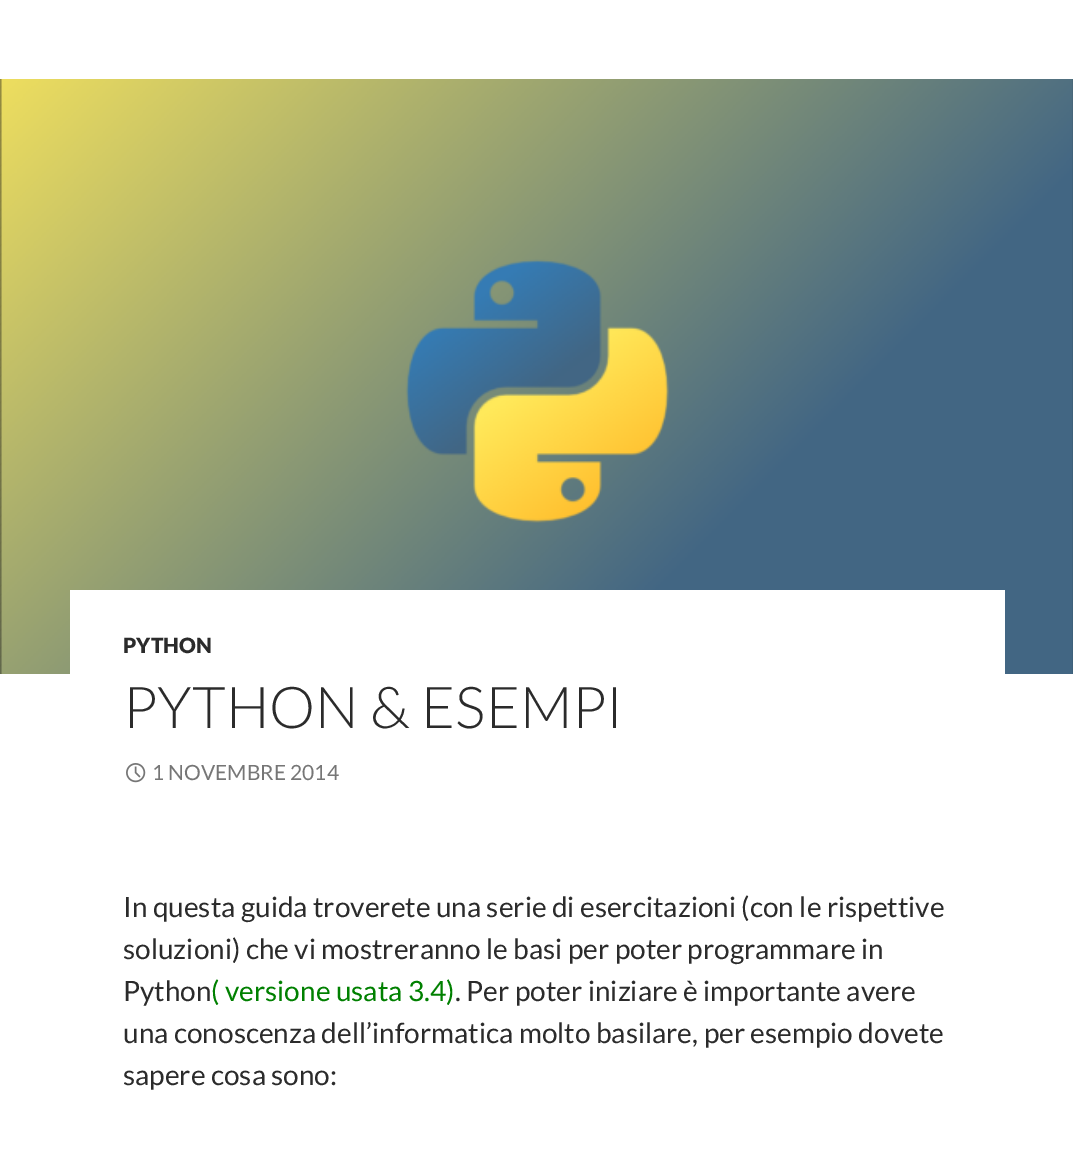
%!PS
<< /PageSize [1073 1154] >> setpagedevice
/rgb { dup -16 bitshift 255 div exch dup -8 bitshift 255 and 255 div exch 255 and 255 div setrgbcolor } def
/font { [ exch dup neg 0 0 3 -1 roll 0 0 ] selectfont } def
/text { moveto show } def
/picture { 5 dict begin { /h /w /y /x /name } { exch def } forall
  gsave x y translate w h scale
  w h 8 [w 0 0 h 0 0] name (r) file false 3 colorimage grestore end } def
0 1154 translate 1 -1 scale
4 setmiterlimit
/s1 { /Lato-Black 21 font 16#2B2B2B rgb } def
/s2 { /Lato-Light 57.75 font 16#2B2B2B rgb } def
/s3 { /Lato-Regular 21 font 16#767676 rgb } def
/s4 { /Lato-Regular 28 font 16#2B2B2B rgb } def
/s5 { /Lato-Regular 28 font 16#008000 rgb } def
16#FFFFFF rgb
0 0 1073 1154 rectfill
(pic1.raw) 0 79 1073 595 picture
(pic2.raw) 0 79 1073 595 picture
70 590 935 84 rectfill
s1
(PYTHON) 123 653 text
s2
(PYTHON & ESEMPI) 123 728 text
(pic3.raw) 126 763 20 20 picture
s3
(1 NOVEMBRE 2014) 152 780 text
s4
(In questa guida troverete una serie di esercitazioni \(con le rispettive) 123 917 text
(soluzioni\) che vi mostreranno le basi per poter programmare in) 123 959 text
(Python) 123 1001 text
s5
(\( versione usata 3.4\)) 211 1001 text
s4
(. Per poter iniziare è importante avere) 455 1001 text
(una conoscenza dell’informatica molto basilare, per esempio dovete) 123 1043 text
(sapere cosa sono:) 123 1085 text
showpage
